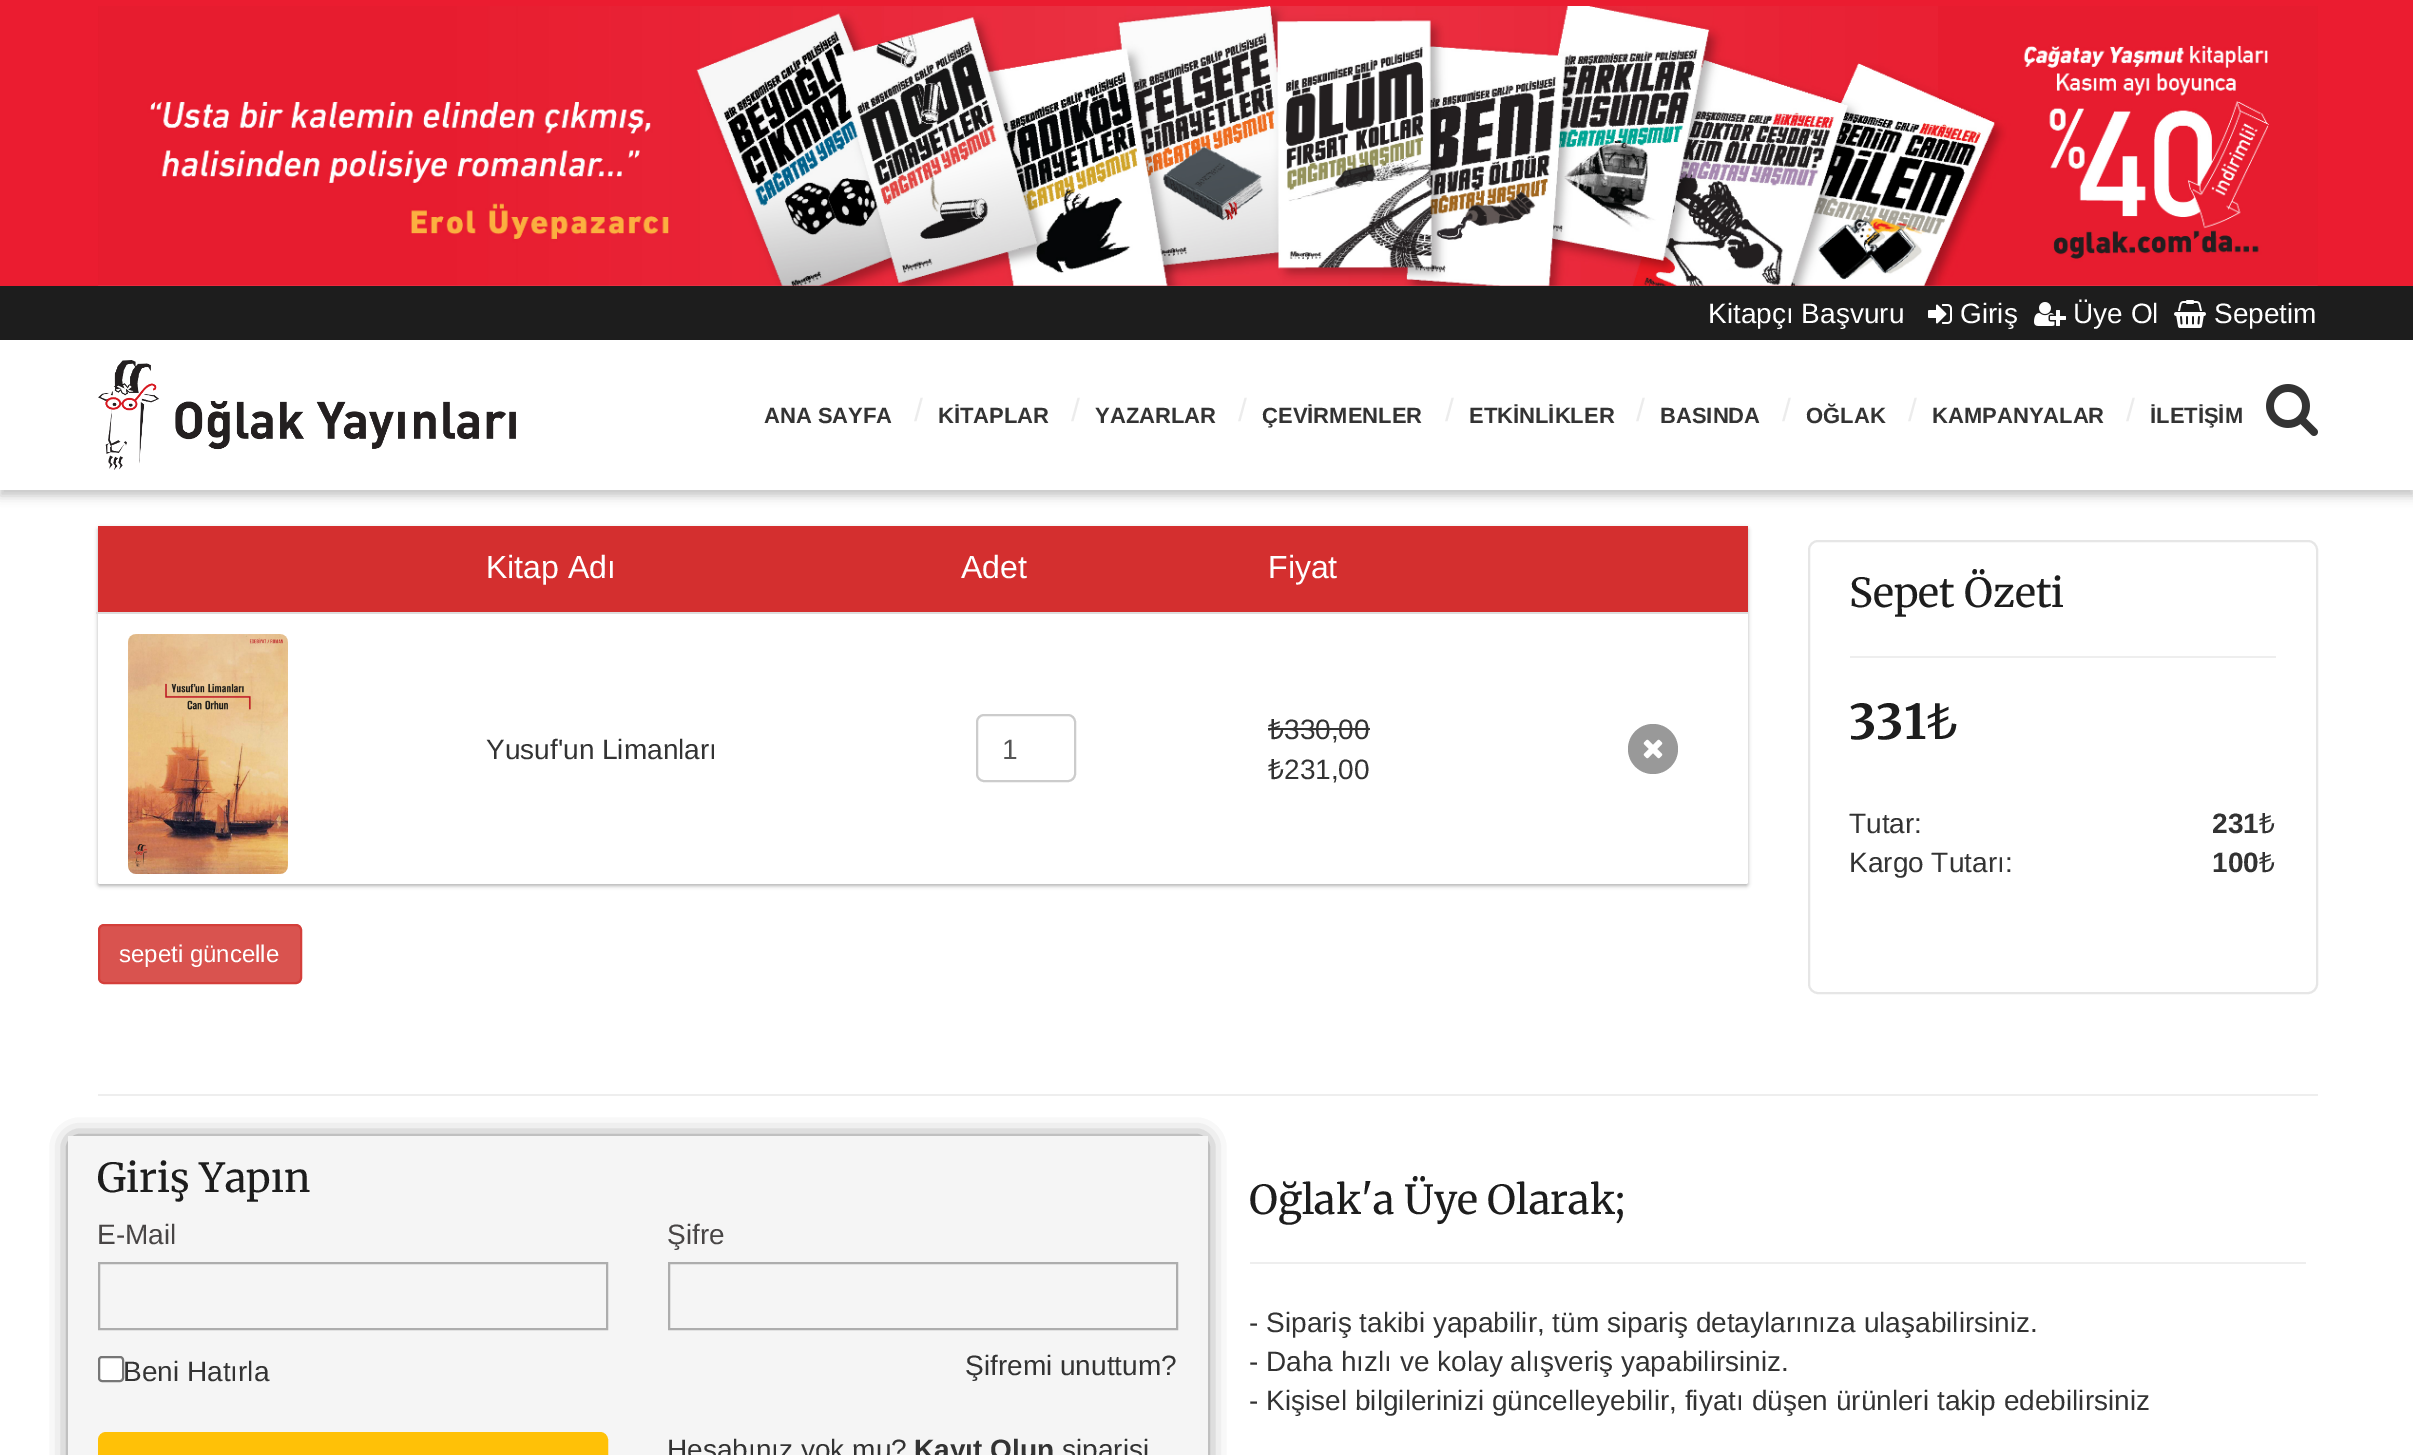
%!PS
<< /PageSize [2413 1455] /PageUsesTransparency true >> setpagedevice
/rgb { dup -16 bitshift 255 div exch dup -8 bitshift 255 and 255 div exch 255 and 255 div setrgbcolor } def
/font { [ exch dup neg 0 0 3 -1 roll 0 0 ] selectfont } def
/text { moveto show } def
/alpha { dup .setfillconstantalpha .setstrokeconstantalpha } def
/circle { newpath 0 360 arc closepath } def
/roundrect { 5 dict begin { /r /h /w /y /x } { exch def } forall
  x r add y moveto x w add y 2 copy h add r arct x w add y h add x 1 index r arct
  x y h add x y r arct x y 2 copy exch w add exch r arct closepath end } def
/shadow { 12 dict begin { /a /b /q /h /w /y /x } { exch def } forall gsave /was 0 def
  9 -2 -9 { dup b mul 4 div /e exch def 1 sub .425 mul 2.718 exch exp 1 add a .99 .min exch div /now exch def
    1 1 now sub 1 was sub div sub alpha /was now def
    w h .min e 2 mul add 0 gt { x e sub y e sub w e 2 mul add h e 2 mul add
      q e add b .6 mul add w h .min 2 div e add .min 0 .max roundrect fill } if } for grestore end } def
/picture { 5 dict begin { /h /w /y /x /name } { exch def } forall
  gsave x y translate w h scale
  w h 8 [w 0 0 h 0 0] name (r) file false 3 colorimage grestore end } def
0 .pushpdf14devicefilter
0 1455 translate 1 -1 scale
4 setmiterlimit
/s1 { /LiberationSans-Regular 28 font 16#FFFFFF rgb } def
/s2 { /LiberationSans-Bold 22 font 16#333333 rgb } def
/s3 { /LiberationSans-Regular 32 font 16#ECECEC rgb } def
/s4 { /LiberationSans-Regular 32 font 16#FFFFFF rgb } def
/s5 { /LiberationSans-Regular 28 font 16#333333 rgb } def
/s6 { /LiberationSans-Regular 28 font 16#555555 rgb } def
/s7 { /NotoSans-Regular 28 font 16#333333 rgb } def
/s8 { /LiberationSans-Regular 24 font 16#FFFFFF rgb } def
/s9 { /Merriweather-Regular 40 font 16#1D1D1D rgb } def
/s10 { /Merriweather-Bold 48 font 16#1D1D1D rgb } def
/s11 { /Merriweather-Regular 48 font 16#1D1D1D rgb } def
/s12 { /LiberationSans-Bold 28 font 16#333333 rgb } def
/s13 { /LiberationSans-Regular 28 font 16#484545 rgb } def
16#FFFFFF rgb
0 0 2413 1455 rectfill
16#EB1C30 rgb
0 0 2413 286 rectfill
(pic1.raw) 98 6 2220 280 picture
16#1D1D1D rgb
0 286 2413 54 rectfill
s1
(Kitapçı Başvuru) 1708 323 text
(pic2.raw) 1928 304 24 20 picture
(Giriş) 1960 323 text
(pic3.raw) 2034 302 32 24 picture
(Üye Ol) 2073 323 text
(pic4.raw) 2174 300 32 28 picture
(Sepetim) 2214 323 text
gsave
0 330 moveto 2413 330 lineto 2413 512 lineto 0 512 lineto closepath 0 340 moveto 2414 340 lineto 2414 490 lineto 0 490 lineto closepath eoclip newpath
16#323232 rgb
0 346 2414 150 0 5 0.28 shadow
grestore
(pic5.raw) 98 360 418 110 picture
s2
(ANA SAYFA) 764 423 text
s3
(/) 914 421 text
s2
(KİTAPLAR) 938 423 text
s3
(/) 1071 421 text
s2
(YAZARLAR) 1095 423 text
s3
(/) 1238 421 text
s2
(ÇEVİRMENLER) 1262 423 text
s3
(/) 1445 421 text
s2
(ETKİNLİKLER) 1469 423 text
s3
(/) 1636 421 text
s2
(BASINDA) 1660 423 text
s3
(/) 1782 421 text
s2
(OĞLAK) 1806 423 text
s3
(/) 1908 421 text
s2
(KAMPANYALAR) 1932 423 text
s3
(/) 2126 421 text
s2
(İLETİŞİM) 2150 423 text
(pic6.raw) 2266 384 52 52 picture
16#000000 rgb
98 528 1650 358 2 2 0.3 shadow
16#FFFFFF rgb
98 526 1650 358 2 roundrect fill
16#D42F2F rgb
98 526 1650 86 rectfill
s4
(Kitap Adı) 486 578 text
(Adet) 961 578 text
(Fiyat) 1268 578 text
16#DDDDDD rgb
96 612 1652 2 rectfill
16#999999 rgb
1653 749 25 circle fill
(pic7.raw) 1643 739 20 20 picture
(pic8.raw) 128 634 160 240 picture
s5
(Yusuf'un Limanları) 486 759 text
16#CCCCCC rgb
2 setlinewidth
977 715 98 66 7 roundrect stroke
s6
(1) 1002 759 text
s7
(₺) 1268 739 text
1268 728 102 2 rectfill
s5
(330,00) 1284 739 text
s7
(₺) 1268 779 text
s5
(231,00) 1284 779 text
16#D9534F rgb
99 925 202 58 5 roundrect gsave fill grestore
16#D43F3A rgb
stroke
s8
(sepeti güncelle) 119 962 text
16#E6E6E6 rgb
1809 541 508 452 9 roundrect stroke
s9
(Sepet Özeti) 1849 607 text
16#EEEEEE rgb
1850 656 426 2 rectfill
s10
(331) 1849 739 text
s11
(₺) 1926 739 text
s5
(Tutar:) 1849 833 text
s12
(231) 2212 833 text
s7
(₺) 2259 833 text
s5
(Kargo Tutarı:) 1849 872 text
s12
(100) 2212 872 text
s7
(₺) 2259 872 text
16#EEEEEE rgb
98 1094 2220 2 rectfill
16#000000 rgb
74 1142 1128 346 0 11 0.82 shadow
16#F5F5F5 rgb
68 1136 1140 319 rectfill
s9
(Giriş Yapın) 97 1192 text
s13
(E-Mail) 97 1244 text
16#ADADAD rgb
99 1263 508 66 rectstroke
16#FFFFFF rgb
99 1357 24 24 3 roundrect gsave fill grestore
16#767676 rgb
stroke
s5
(Beni Hatırla) 123 1381 text
s13
(Şifre) 667 1244 text
16#ADADAD rgb
669 1263 508 66 rectstroke
s5
(Şifremi unuttum?) 965 1375 text
16#FFC107 rgb
99 1433 508 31 7 roundrect gsave fill grestore
stroke
s5
(Hesabınız yok mu?) 667 1459 text
s12
(Kayıt Olun) 914 1459 text
s5
(siparişi) 1062 1459 text
s9
(Oğlak'a Üye Olarak;) 1249 1214 text
16#EEEEEE rgb
1250 1262 1056 2 rectfill
s5
(- Sipariş takibi yapabilir, tüm sipariş detaylarınıza ulaşabilirsiniz.) 1249 1332 text
(- Daha hızlı ve kolay alışveriş yapabilirsiniz.) 1249 1371 text
(- Kişisel bilgilerinizi güncelleyebilir, fiyatı düşen ürünleri takip edebilirsiniz) 1249 1410 text
.poppdf14devicefilter showpage
